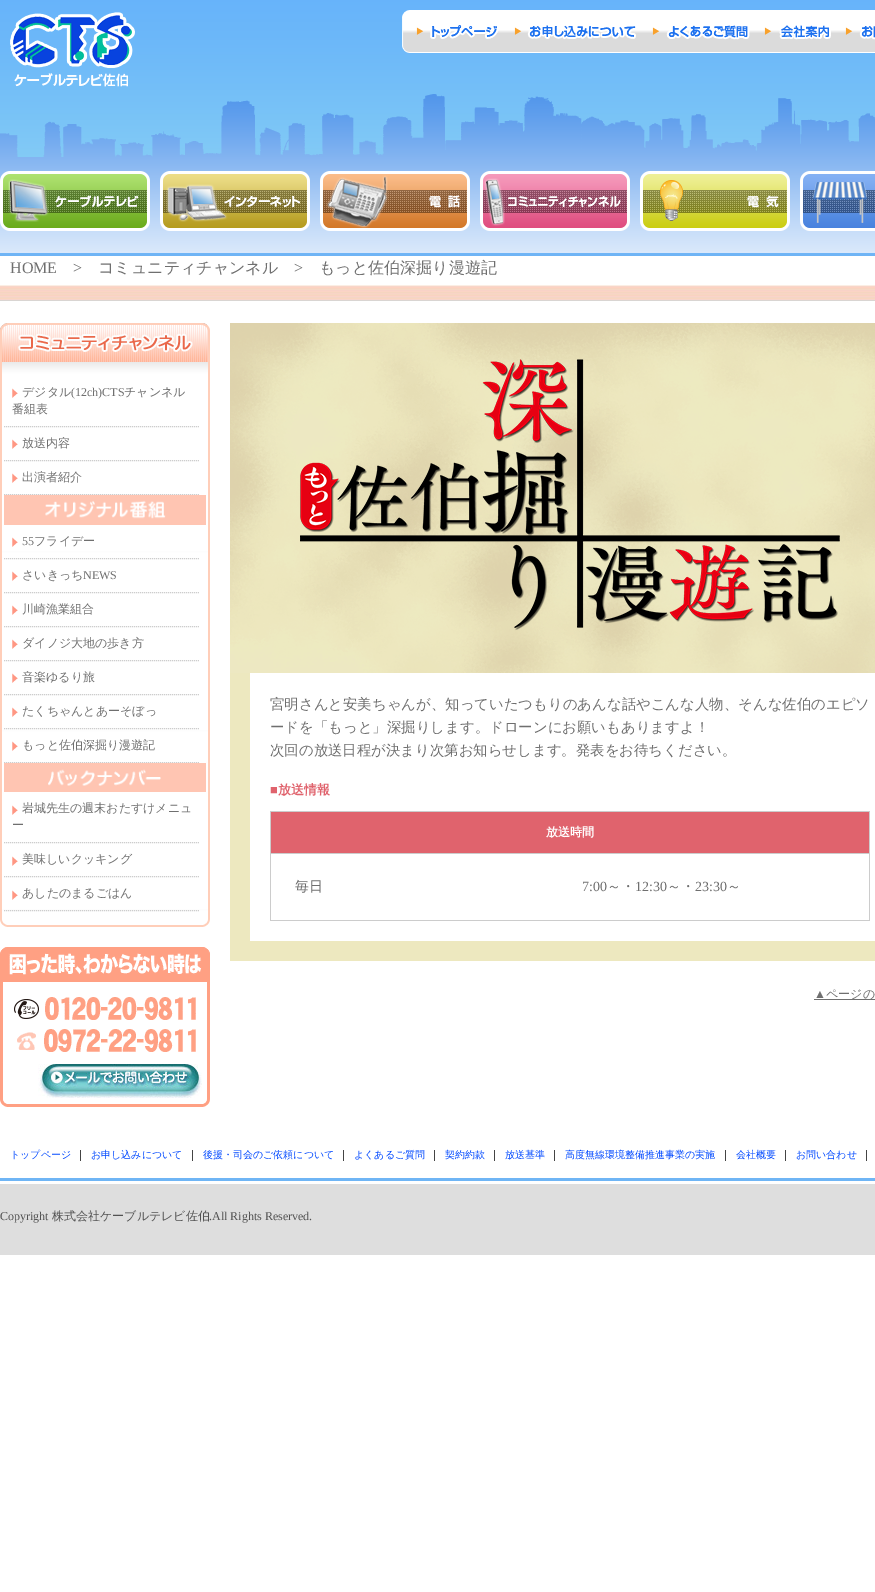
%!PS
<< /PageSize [875 1592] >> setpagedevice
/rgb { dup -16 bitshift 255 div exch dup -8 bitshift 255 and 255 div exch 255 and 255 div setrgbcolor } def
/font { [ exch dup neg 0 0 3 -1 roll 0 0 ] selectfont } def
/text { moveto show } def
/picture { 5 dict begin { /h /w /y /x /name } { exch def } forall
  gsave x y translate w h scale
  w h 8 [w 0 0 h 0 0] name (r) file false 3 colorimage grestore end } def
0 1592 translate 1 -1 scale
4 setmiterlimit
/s1 { /LiberationSerif-Regular 16 font 16#6F6F6F rgb } def
/s2 { /WenQuanYiZenHei-Medium 16 font 16#6F6F6F rgb } def
/s3 { /WenQuanYiZenHei-Medium 12 font 16#6F6F6F rgb } def
/s4 { /LiberationSerif-Regular 12 font 16#6F6F6F rgb } def
/s5 { /WenQuanYiZenHei-Medium 14.4 font 16#6F6F6F rgb } def
/s6 { /LiberationSerif-Bold 13 font 16#E0636D rgb } def
/s7 { /WenQuanYiZenHei-Bold 13 font 16#E0636D rgb } def
/s8 { /WenQuanYiZenHei-Bold 12 font 16#FFFFFF rgb } def
/s9 { /WenQuanYiZenHei-Medium 14 font 16#6F6F6F rgb } def
/s10 { /LiberationSerif-Regular 14 font 16#6F6F6F rgb } def
/s11 { /WenQuanYiZenHei-Medium 10 font 16#0048FF rgb } def
/s12 { /LiberationSerif-Regular 12 font 16#525252 rgb } def
/s13 { /WenQuanYiZenHei-Medium 12 font 16#525252 rgb } def
16#FFFFFF rgb
0 0 875 1592 rectfill
(pic1.raw) 0 0 875 157 picture
(pic2.raw) 10 12 125 75 picture
(pic3.raw) 402 10 105 43 picture
(pic4.raw) 507 10 139 43 picture
(pic5.raw) 646 10 112 43 picture
(pic6.raw) 758 10 82 43 picture
(pic7.raw) 840 10 35 43 picture
(pic8.raw) 0 94 875 159 picture
(pic9.raw) 0 171 150 60 picture
(pic10.raw) 160 171 150 60 picture
(pic11.raw) 320 171 150 60 picture
(pic12.raw) 480 171 150 60 picture
(pic13.raw) 640 171 150 60 picture
(pic14.raw) 800 171 75 60 picture
(pic15.raw) 0 253 875 167 picture
s1
(HOME) 10 273 text
(>) 73 273 text
s2
(コミュニティチャンネル) 98 273 text
s1
(>) 294 273 text
s2
(もっと佐伯深掘り漫遊記) 319 273 text
(pic16.raw) 0 323 210 49 picture
(pic17.raw) 0 372 210 543 picture
16#CDCDCD rgb
[1 1] 0 setdash
4 426.5 moveto 200 426.5 lineto stroke
(pic18.raw) 12 388 6 10 picture
s3
(デジタル) 22 396 text
s4
(\(12ch\)CTS) 71 396 text
s3
(チャンネル) 124 396 text
(番組表) 12 413 text
16#CDCDCD rgb
4 460.5 moveto 200 460.5 lineto stroke
(pic18.raw) 12 439 6 10 picture
s3
(放送内容) 22 447 text
16#CDCDCD rgb
4 494.5 moveto 200 494.5 lineto stroke
(pic18.raw) 12 473 6 10 picture
s3
(出演者紹介) 22 481 text
(pic19.raw) 4 495 202 30 picture
16#CDCDCD rgb
4 558.5 moveto 200 558.5 lineto stroke
(pic18.raw) 12 537 6 10 picture
s4
(55) 22 545 text
s3
(フライデー) 34 545 text
16#CDCDCD rgb
4 592.5 moveto 200 592.5 lineto stroke
(pic18.raw) 12 571 6 10 picture
s3
(さいきっち) 22 579 text
s4
(NEWS) 83 579 text
16#CDCDCD rgb
4 626.5 moveto 200 626.5 lineto stroke
(pic18.raw) 12 605 6 10 picture
s3
(川崎漁業組合) 22 613 text
16#CDCDCD rgb
4 660.5 moveto 200 660.5 lineto stroke
(pic18.raw) 12 639 6 10 picture
s3
(ダイノジ大地の歩き方) 22 647 text
16#CDCDCD rgb
4 694.5 moveto 200 694.5 lineto stroke
(pic18.raw) 12 673 6 10 picture
s3
(音楽ゆるり旅) 22 681 text
16#CDCDCD rgb
4 728.5 moveto 200 728.5 lineto stroke
(pic18.raw) 12 707 6 10 picture
s3
(たくちゃんとあーそぼっ) 22 715 text
16#CDCDCD rgb
4 762.5 moveto 200 762.5 lineto stroke
(pic18.raw) 12 741 6 10 picture
s3
(もっと佐伯深掘り漫遊記) 22 749 text
(pic20.raw) 4 763 202 29 picture
16#CDCDCD rgb
4 842.5 moveto 200 842.5 lineto stroke
(pic18.raw) 12 805 6 10 picture
s3
(岩城先生の週末おたすけメニュ) 22 812 text
(ー) 12 829 text
16#CDCDCD rgb
4 876.5 moveto 200 876.5 lineto stroke
(pic18.raw) 12 856 6 10 picture
s3
(美味しいクッキング) 22 863 text
16#CDCDCD rgb
4 910.5 moveto 200 910.5 lineto stroke
(pic18.raw) 12 890 6 10 picture
s3
(あしたのまるごはん) 22 897 text
(pic21.raw) 0 915 210 12 picture
(pic22.raw) 0 947 210 117 picture
(pic23.raw) 0 1064 210 34 picture
(pic24.raw) 38 1064 164 34 picture
(pic25.raw) 0 1098 210 9 picture
(pic26.raw) 230 323 645 350 picture
16#EDE8BF rgb
230 673 20 268 rectfill
s5
(宮明さんと安美ちゃんが、知っていたつもりのあんな話やこんな人物、そんな佐伯のエピソ) 270 709 text
(ードを「もっと」深掘りします。ドローンにお願いもありますよ！) 270 732 text
(次回の放送日程が決まり次第お知らせします。発表をお待ちください。) 270 755 text
s6
(■) 270 794 text
s7
(放送情報) 278 794 text
16#CCCCCC rgb
270 811 600 1 rectfill
869 811 1 110 rectfill
16#E0636D rgb
271 812 598 41 rectfill
16#CCCCCC rgb
270 920 600 1 rectfill
270 853 1 68 rectfill
270 853 600 1 rectfill
270 811 1 43 rectfill
s8
(放送時間) 546 836 text
s9
(毎日) 295 891 text
s10
(7:00) 582 891 text
s9
(～・) 607 891 text
s10
(12:30) 635 891 text
s9
(～・) 667 891 text
s10
(23:30) 695 891 text
s9
(～) 727 891 text
16#EDE8BF rgb
230 941 645 20 rectfill
s4
(▲) 814 998 text
814 999 61 1 rectfill
s3
(ページの) 826 998 text
16#444444 rgb
80 1150 1 11 rectfill
s11
(トップページ) 10 1158 text
16#444444 rgb
192 1150 1 11 rectfill
s11
(お申し込みについて) 91 1158 text
16#444444 rgb
343 1150 1 11 rectfill
s11
(後援・司会のご依頼について) 203 1158 text
16#444444 rgb
434 1150 1 11 rectfill
s11
(よくあるご質問) 354 1158 text
16#444444 rgb
494 1150 1 11 rectfill
s11
(契約約款) 445 1158 text
16#444444 rgb
554 1150 1 11 rectfill
s11
(放送基準) 505 1158 text
16#444444 rgb
725 1150 1 11 rectfill
s11
(高度無線環境整備推進事業の実施) 565 1158 text
16#444444 rgb
785 1150 1 11 rectfill
s11
(会社概要) 736 1158 text
16#444444 rgb
866 1150 1 11 rectfill
s11
(お問い合わせ) 796 1158 text
16#DEDEDE rgb
0 1184 875 71 rectfill
(pic27.raw) 0 1178 875 6 picture
s12
(Copyright) 0 1220 text
s13
(株式会社ケーブルテレビ佐伯) 52 1220 text
s12
(.All Rights Reserved.) 209 1220 text
showpage
